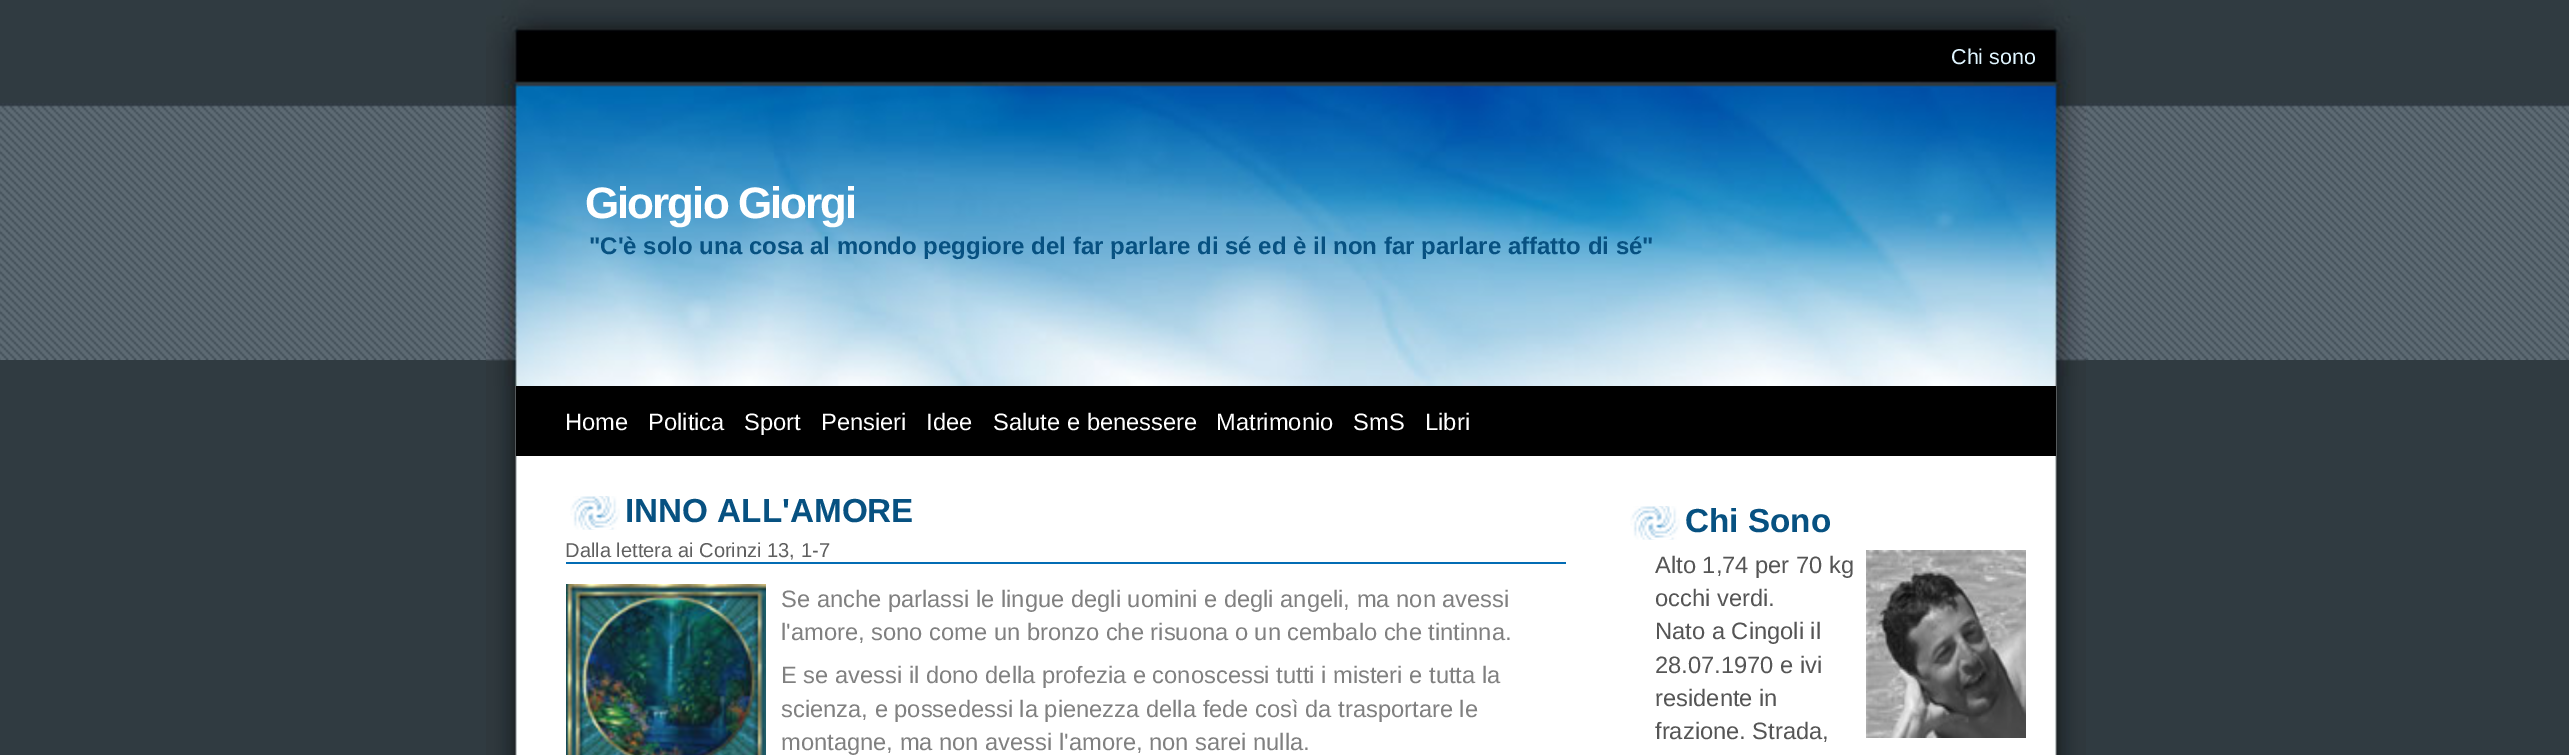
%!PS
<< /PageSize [2569 755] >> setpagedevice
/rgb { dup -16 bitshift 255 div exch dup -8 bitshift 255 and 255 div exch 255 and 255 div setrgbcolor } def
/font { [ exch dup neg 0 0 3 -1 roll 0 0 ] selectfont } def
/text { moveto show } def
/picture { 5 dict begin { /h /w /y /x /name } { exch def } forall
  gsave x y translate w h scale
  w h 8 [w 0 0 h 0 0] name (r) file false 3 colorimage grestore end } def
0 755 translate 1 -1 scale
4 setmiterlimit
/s1 { /LiberationSans-Regular 21.5 font 16#E0F5FF rgb } def
/s2 { /LiberationSans-Bold 24 font 16#075181 rgb } def
/s3 { /LiberationSans-Regular 23.7 font 16#FFFFFF rgb } def
/s4 { /LiberationSans-Bold 33.25 font 16#075181 rgb } def
/s5 { /LiberationSans-Regular 20.1 font 16#5F5F5F rgb } def
/s6 { /LiberationSans-Regular 23.7 font 16#808080 rgb } def
/s7 { /LiberationSans-Regular 23.7 font 16#555555 rgb } def
16#303B41 rgb
0 0 2569 755 rectfill
(pic1.raw) 0 103 2569 257 picture
(pic2.raw) 486 386 1600 369 picture
(pic3.raw) 486 0 1600 88 picture
s1
(Chi sono) 1951 64 text
(pic4.raw) 486 88 1600 298 picture
/LiberationSans-Bold 44 font
16#FFFFFF rgb
585 218 moveto -2 0 (Giorgio Giorgi) ashow
s2
("C'è solo una cosa al mondo peggiore del far parlare di sé ed è il non far parlare affatto di sé") 589 254 text
16#000000 rgb
516 386 1540 70 rectfill
s3
(Home) 565 430 text
(Politica) 648 430 text
(Sport) 744 430 text
(Pensieri) 821 430 text
(Idee) 926 430 text
(Salute e benessere) 993 430 text
(Matrimonio) 1216 430 text
(SmS) 1353 430 text
(Libri) 1425 430 text
(pic5.raw) 570 496 50 34 picture
s4
(INNO ALL'AMORE) 625 522 text
16#036CB4 rgb
566 562 1000 2 rectfill
s5
(Dalla lettera ai Corinzi 13, 1-7) 565 557 text
(pic6.raw) 566 584 200 171 picture
s6
(Se anche parlassi le lingue degli uomini e degli angeli, ma non avessi) 781 607 text
(l'amore, sono come un bronzo che risuona o un cembalo che tintinna.) 781 640 text
(E se avessi il dono della profezia e conoscessi tutti i misteri e tutta la) 781 683 text
(scienza, e possedessi la pienezza della fede così da trasportare le) 781 717 text
(montagne, ma non avessi l'amore, non sarei nulla.) 781 750 text
(pic7.raw) 1630 506 50 34 picture
s4
(Chi Sono) 1685 532 text
s7
(Alto 1,74 per 70 kg) 1655 573 text
(pic8.raw) 1866 550 160 188 picture
(occhi verdi.) 1655 606 text
(Nato a Cingoli il) 1655 639 text
(28.07.1970 e ivi) 1655 673 text
(residente in) 1655 706 text
(frazione. Strada,) 1655 739 text
showpage
